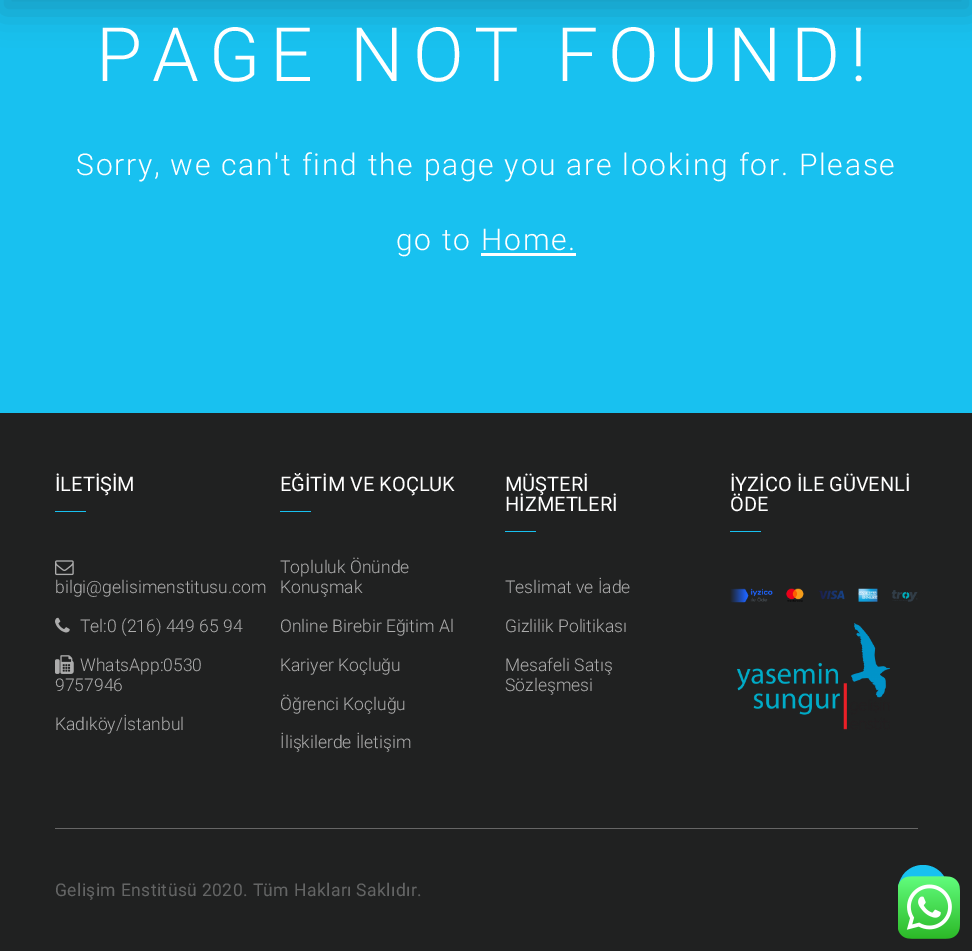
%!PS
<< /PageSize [972 951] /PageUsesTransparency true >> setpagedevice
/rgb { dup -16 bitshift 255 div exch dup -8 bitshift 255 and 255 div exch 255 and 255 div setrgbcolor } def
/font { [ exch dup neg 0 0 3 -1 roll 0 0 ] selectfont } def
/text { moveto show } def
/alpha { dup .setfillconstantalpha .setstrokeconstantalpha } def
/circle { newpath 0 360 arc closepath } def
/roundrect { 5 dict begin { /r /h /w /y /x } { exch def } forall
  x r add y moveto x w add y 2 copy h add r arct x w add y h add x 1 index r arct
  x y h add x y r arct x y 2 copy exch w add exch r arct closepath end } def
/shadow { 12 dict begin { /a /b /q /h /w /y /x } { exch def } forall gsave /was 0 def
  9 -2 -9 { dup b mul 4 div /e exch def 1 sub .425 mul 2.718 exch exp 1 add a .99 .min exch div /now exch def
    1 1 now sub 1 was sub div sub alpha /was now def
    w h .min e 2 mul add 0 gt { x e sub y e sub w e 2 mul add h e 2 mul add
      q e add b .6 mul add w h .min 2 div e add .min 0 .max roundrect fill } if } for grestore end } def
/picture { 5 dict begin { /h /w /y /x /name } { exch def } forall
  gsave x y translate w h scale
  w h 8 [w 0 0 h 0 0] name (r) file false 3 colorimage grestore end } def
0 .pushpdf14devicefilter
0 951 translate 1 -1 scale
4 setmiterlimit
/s1 { /Roboto-Regular 20 font 16#FFFFFF rgb } def
/s2 { /Roboto-Light 17.5 font 16#ACACAC rgb } def
16#18C1F0 rgb
0 0 972 951 rectfill
16#181718 rgb
0 -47 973 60 0 15.5 0.2 shadow
/Roboto-Light 75 font
16#FFFFFF rgb
96 81 moveto 9.75 0 (PAGE NOT FOUND!) ashow
/Roboto-Light 30 font
76 175 moveto 1.75 0 (Sorry, we can't find the page you are looking for. Please) ashow
396 250 moveto 1.75 0 (go to Home.) ashow
481 253 95 3 rectfill
16#202121 rgb
0 413 972 538 rectfill
s1
(İLETİŞİM) 55 491 text
16#18C1F0 rgb
55 511 31 1 rectfill
(pic1.raw) 55 560 19 16 picture
s2
(bilgi@gelisimenstitusu.com) 55 593 text
(pic2.raw) 55 617 15 16 picture
(Tel:0 \(216\) 449 65 94) 80 632 text
(pic3.raw) 55 655 19 19 picture
(WhatsApp:0530) 80 671 text
(9757946) 55 691 text
(Kadıköy/İstanbul) 55 730 text
s1
(EĞİTİM VE KOÇLUK) 280 491 text
16#18C1F0 rgb
280 511 31 1 rectfill
s2
(Topluluk Önünde) 280 573 text
(Konuşmak) 280 593 text
(Online Birebir Eğitim Al) 280 632 text
(Kariyer Koçluğu) 280 671 text
(Öğrenci Koçluğu) 280 710 text
(İlişkilerde İletişim) 280 748 text
s1
(MÜŞTERİ) 505 491 text
(HİZMETLERİ) 505 511 text
16#18C1F0 rgb
505 531 31 1 rectfill
s2
(Teslimat ve İade) 505 593 text
(Gizlilik Politikası) 505 632 text
(Mesafeli Satış) 505 671 text
(Sözleşmesi) 505 691 text
s1
(İYZİCO İLE GÜVENLİ) 730 491 text
(ÖDE) 730 511 text
16#18C1F0 rgb
730 531 31 1 rectfill
(pic4.raw) 730 588 188 15 picture
(pic5.raw) 737 623 153 107 picture
16#666666 rgb
55 828 863 1 rectfill
/Roboto-Regular 17.5 font
16#646565 rgb
55 896 moveto 0.4 0 (Gelişim Enstitüsü 2020. Tüm Hakları Saklıdır.) ashow
16#18C1F0 rgb
923 890 25 circle fill
(pic6.raw) 898 876 62 63 picture
.poppdf14devicefilter showpage
